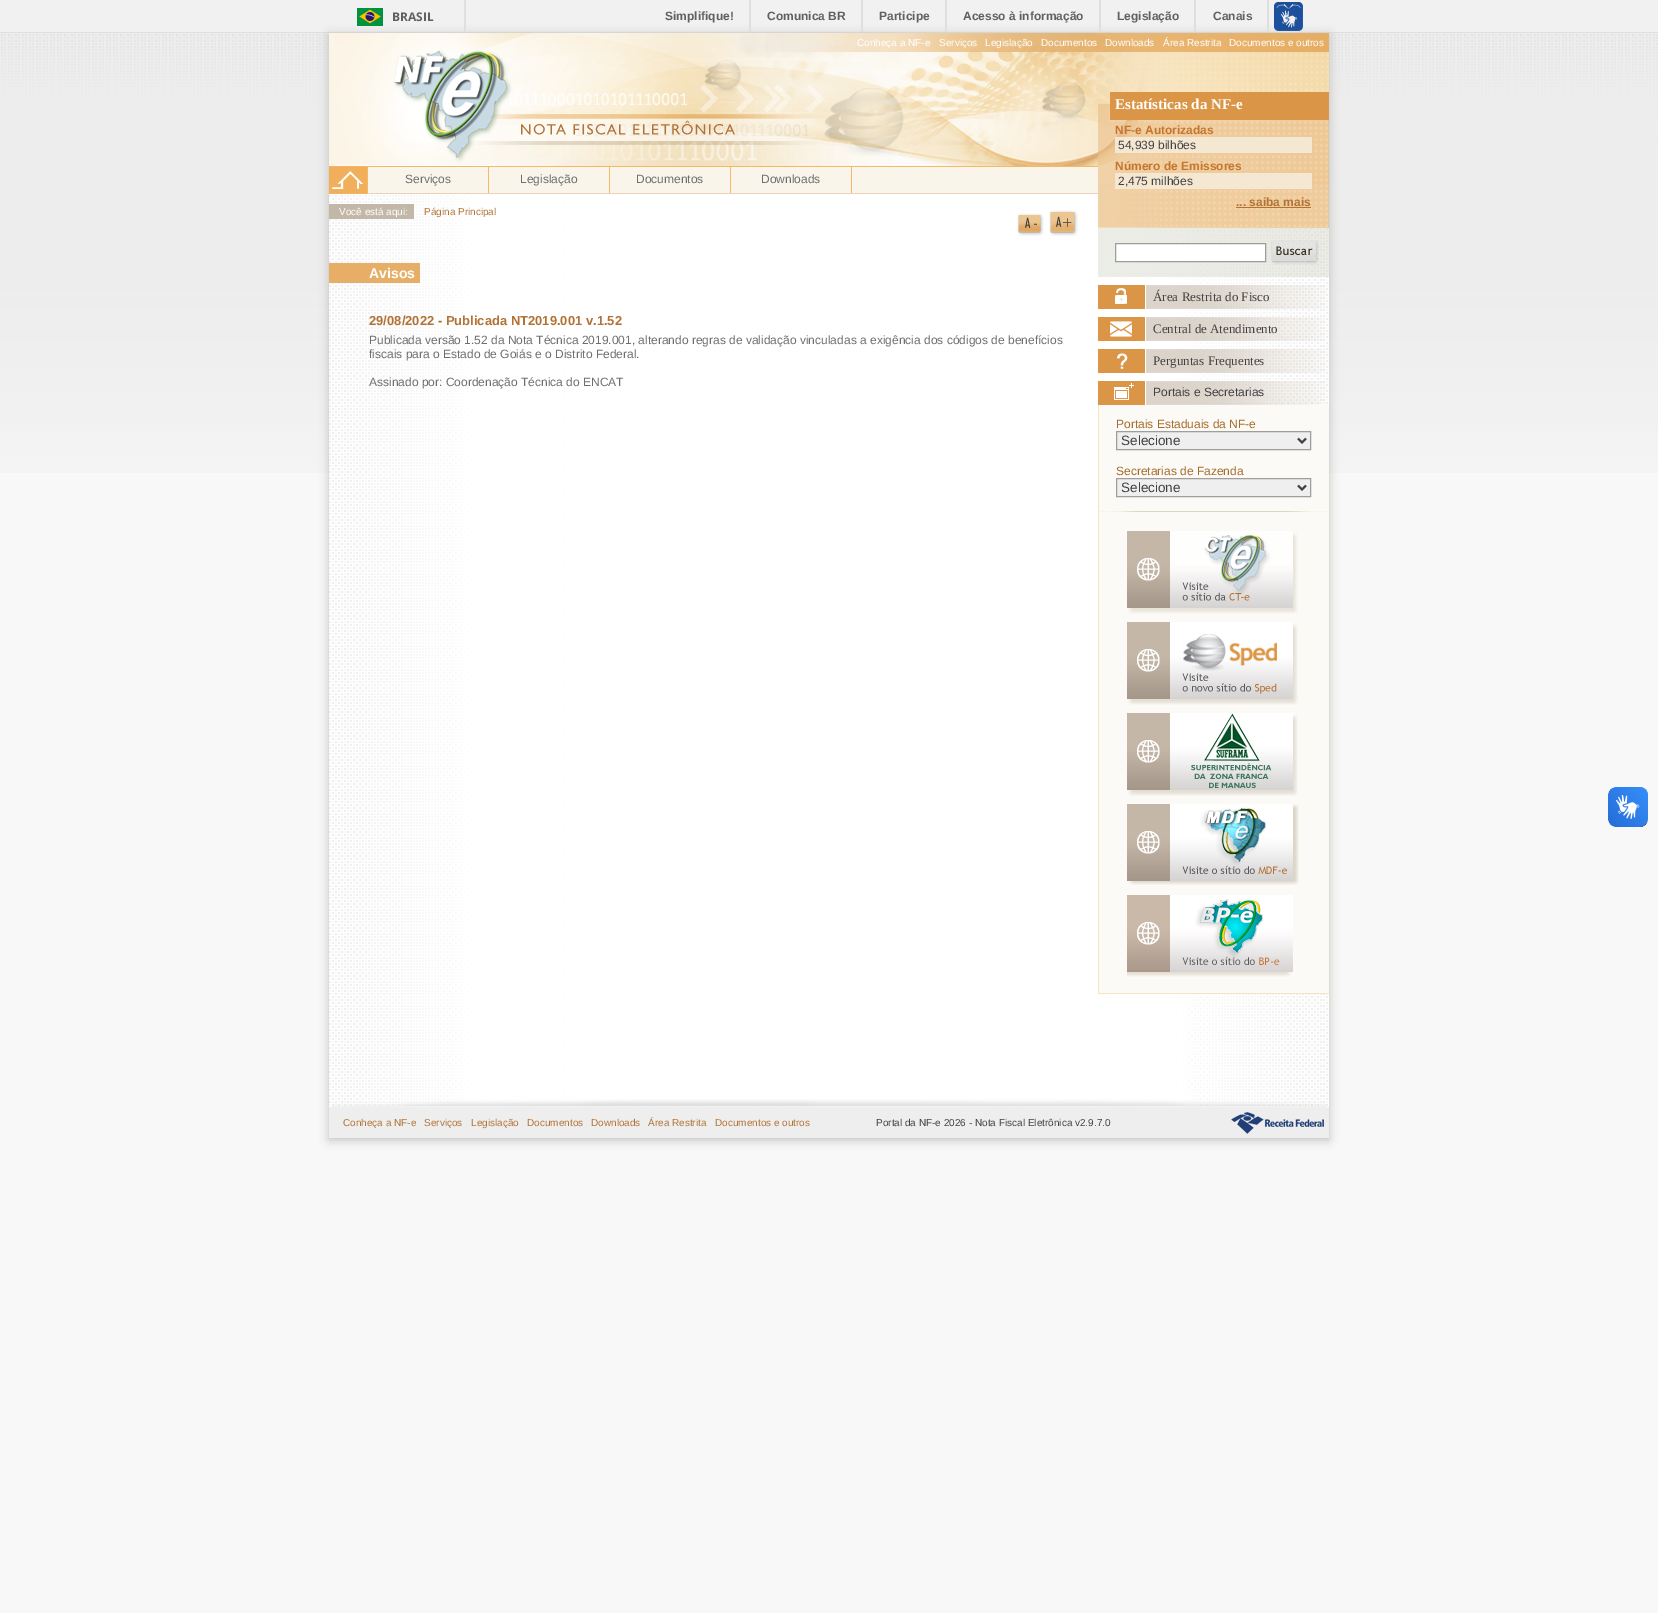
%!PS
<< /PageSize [1658 1613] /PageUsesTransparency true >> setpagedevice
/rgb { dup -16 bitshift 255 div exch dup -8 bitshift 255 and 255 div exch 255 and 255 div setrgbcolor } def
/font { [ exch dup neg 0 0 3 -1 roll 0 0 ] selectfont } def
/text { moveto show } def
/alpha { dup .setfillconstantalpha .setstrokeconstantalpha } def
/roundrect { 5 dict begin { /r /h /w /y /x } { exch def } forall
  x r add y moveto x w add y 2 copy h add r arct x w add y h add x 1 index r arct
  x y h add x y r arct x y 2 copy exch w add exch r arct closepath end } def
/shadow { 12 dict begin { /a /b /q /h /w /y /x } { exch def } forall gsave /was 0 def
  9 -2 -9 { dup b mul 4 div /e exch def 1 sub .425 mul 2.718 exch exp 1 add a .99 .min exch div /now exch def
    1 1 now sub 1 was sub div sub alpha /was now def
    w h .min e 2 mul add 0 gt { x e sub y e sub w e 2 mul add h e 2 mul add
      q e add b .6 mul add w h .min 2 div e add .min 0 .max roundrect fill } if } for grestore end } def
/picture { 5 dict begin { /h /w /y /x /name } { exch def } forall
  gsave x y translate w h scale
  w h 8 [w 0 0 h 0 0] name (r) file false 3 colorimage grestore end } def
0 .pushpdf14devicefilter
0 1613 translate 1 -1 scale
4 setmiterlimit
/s1 { /OpenSans-Bold 12 font 16#606060 rgb } def
/s2 { /LiberationSans-Bold 12 font 16#606060 rgb } def
/s3 { /LiberationSans-Regular 10 font 16#FFFFFF rgb } def
/s4 { /LiberationSans-Regular 12 font 16#6D6E71 rgb } def
/s5 { /LiberationSans-Regular 10 font 16#B27235 rgb } def
/s6 { /LiberationSans-Bold 14 font 16#FFFFFF rgb } def
/s7 { /LiberationSans-Bold 13 font 16#B27235 rgb } def
/s8 { /LiberationSerif-Bold 15 font 16#FFFFFF rgb } def
/s9 { /LiberationSans-Bold 12 font 16#C5752E rgb } def
/s10 { /LiberationSans-Regular 12 font 16#414042 rgb } def
/s11 { /LiberationSans-Bold 12 font 16#B27235 rgb } def
/s12 { /LiberationSerif-Regular 13 font 16#414042 rgb } def
/s13 { /LiberationSans-Regular 12 font 16#A56C2B rgb } def
/s14 { /LiberationSans-Regular 13.5 font 16#414042 rgb } def
/s15 { /LiberationSans-Regular 10 font 16#414042 rgb } def
16#F8F8F8 rgb
0 0 1658 1613 rectfill
(pic1.raw) 0 33 1658 440 picture
16#F1F1F1 rgb
0 0 1658 32 rectfill
16#DFDFDF rgb
0 32 1658 1 rectfill
16#BDBDBB rgb
329 35 1000 1105 0 5 1 shadow
16#DFDFDF rgb
464 0 2 32 rectfill
(pic2.raw) 357 8 26 18 picture
s1
(BRASIL) 392 21 text
16#DFDFDF rgb
749 0 2 32 rectfill
s2
(Simplifique!) 665 20 text
16#DFDFDF rgb
861 0 2 32 rectfill
s2
(Comunica BR) 767 20 text
16#DFDFDF rgb
945 0 2 32 rectfill
s2
(Participe) 879 20 text
16#DFDFDF rgb
1099 0 2 32 rectfill
s2
(Acesso à informação) 963 20 text
16#DFDFDF rgb
1194 0 2 32 rectfill
s2
(Legislação) 1117 20 text
16#DFDFDF rgb
1267 0 2 32 rectfill
s2
(Canais) 1213 20 text
(pic3.raw) 1274 2 29 29 picture
16#FFFFFF rgb
1328 228 1 879 rectfill
(pic4.raw) 329 194 999 913 picture
16#FCF5E7 rgb
329 33 5 133 rectfill
(pic5.raw) 334 33 995 133 picture
s3
(Conheça a NF-e) 857 46 text
(Serviços) 939 46 text
(Legislação) 985 46 text
(Documentos) 1041 46 text
(Downloads) 1105 46 text
(Área Restrita) 1163 46 text
(Documentos e outros) 1229 46 text
(pic6.raw) 329 166 38 28 picture
16#F9F5EA rgb
368 167 730 26 rectfill
16#F3B967 rgb
367 166 731 1 rectfill
16#EDD0B9 rgb
367 193 731 1 rectfill
16#F3B967 rgb
367 166 1 28 rectfill
488 167 1 26 rectfill
s4
(Serviços) 405 183 text
16#F3B967 rgb
609 167 1 26 rectfill
s4
(Legislação) 520 183 text
16#F3B967 rgb
730 167 1 26 rectfill
s4
(Documentos) 636 183 text
16#F3B967 rgb
851 167 1 26 rectfill
s4
(Downloads) 761 183 text
16#C3B8A8 rgb
329 204 85 15 rectfill
s3
(Você está aqui:) 339 215 text
s5
(Página Principal) 424 215 text
(pic7.raw) 1017 213 27 23 picture
(pic8.raw) 1049 210 29 26 picture
16#E6AE67 rgb
329 263 91 20 rectfill
s6
(Avisos) 369 278 text
s7
(29/08/2022 - Publicada NT2019.001 v.1.52) 369 325 text
s4
(Publicada versão 1.52 da Nota Técnica 2019.001, alterando regras de validação vinculadas a exigência dos códigos de benefícios) 369 344 text
(fiscais para o Estado de Goiás e o Distrito Federal.) 369 358 text
(Assinado por: Coordenação Técnica do ENCAT) 369 386 text
(pic9.raw) 1098 92 231 136 picture
s8
(Estatísticas da NF-e) 1115 109 text
s9
(NF-e Autorizadas) 1115 134 text
16#F5E8D2 rgb
1115 137 197 16 rectfill
s10
(54,939 bilhões) 1118 149 text
s9
(Número de Emissores) 1115 170 text
16#F5E8D2 rgb
1115 173 197 16 rectfill
s10
(2,475 milhões) 1118 185 text
s11
(... saiba mais) 1236 206 text
1236 207 75 1 rectfill
(pic10.raw) 1098 228 231 49 picture
16#FFFFFF rgb
1115.5 243.5 moveto 1265.5 243.5 lineto 1265.5 261.5 lineto 1115.5 261.5 lineto closepath gsave fill grestore
16#A09C99 rgb
stroke
(pic11.raw) 1271 240 48 25 picture
(pic12.raw) 1098 285 228 24 picture
s12
(Área Restrita do Fisco) 1153 301 text
(pic13.raw) 1098 317 227 24 picture
(Central de Atendimento) 1153 333 text
(pic14.raw) 1098 349 228 24 picture
(Perguntas Frequentes) 1153 365 text
(pic15.raw) 1098 381 228 24 picture
s10
(Portais e Secretarias) 1153 396 text
16#FCFAF6 rgb
1099 405 230 588 rectfill
16#F7E2C2 rgb
1098 993 231 1 rectfill
1098 405 1 589 rectfill
s13
(Portais Estaduais da NF-e) 1116 428 text
16#EFEFEF rgb
1116.5 431.5 moveto 1310.5 431.5 lineto 1310.5 449.5 lineto 1116.5 449.5 lineto closepath gsave fill grestore
16#A09E9A rgb
stroke
16#414042 rgb
2 setlinewidth
1298 438.5 moveto 1302 442.5 lineto 1306 438.5 lineto stroke
s14
(Selecione) 1121 445 text
s13
(Secretarias de Fazenda) 1116 475 text
16#EFEFEF rgb
1116.5 478.5 moveto 1310.5 478.5 lineto 1310.5 496.5 lineto 1116.5 496.5 lineto closepath gsave fill grestore
16#A09E9A rgb
1 setlinewidth
stroke
16#414042 rgb
2 setlinewidth
1298 485.5 moveto 1302 489.5 lineto 1306 485.5 lineto stroke
s14
(Selecione) 1121 492 text
(pic16.raw) 1099 511 229 1 picture
(pic17.raw) 1127 531 171 83 picture
(pic18.raw) 1127 622 171 83 picture
(pic19.raw) 1127 713 171 83 picture
(pic20.raw) 1127 804 172 81 picture
(pic21.raw) 1127 895 166 82 picture
(pic22.raw) 332 1099 995 8 picture
16#EEEEEE rgb
329 1107 1000 31 rectfill
s5
(Conheça a NF-e) 343 1126 text
(Serviços) 424 1126 text
(Legislação) 471 1126 text
(Documentos) 527 1126 text
(Downloads) 591 1126 text
(Área Restrita) 648 1126 text
(Documentos e outros) 715 1126 text
s15
(Portal da NF-e 2026 - Nota Fiscal Eletrônica v2.9.7.0) 876 1126 text
(pic23.raw) 1231 1112 93 22 picture
(pic24.raw) 1608 787 40 40 picture
(pic25.raw) 1608 787 40 40 picture
.poppdf14devicefilter showpage
